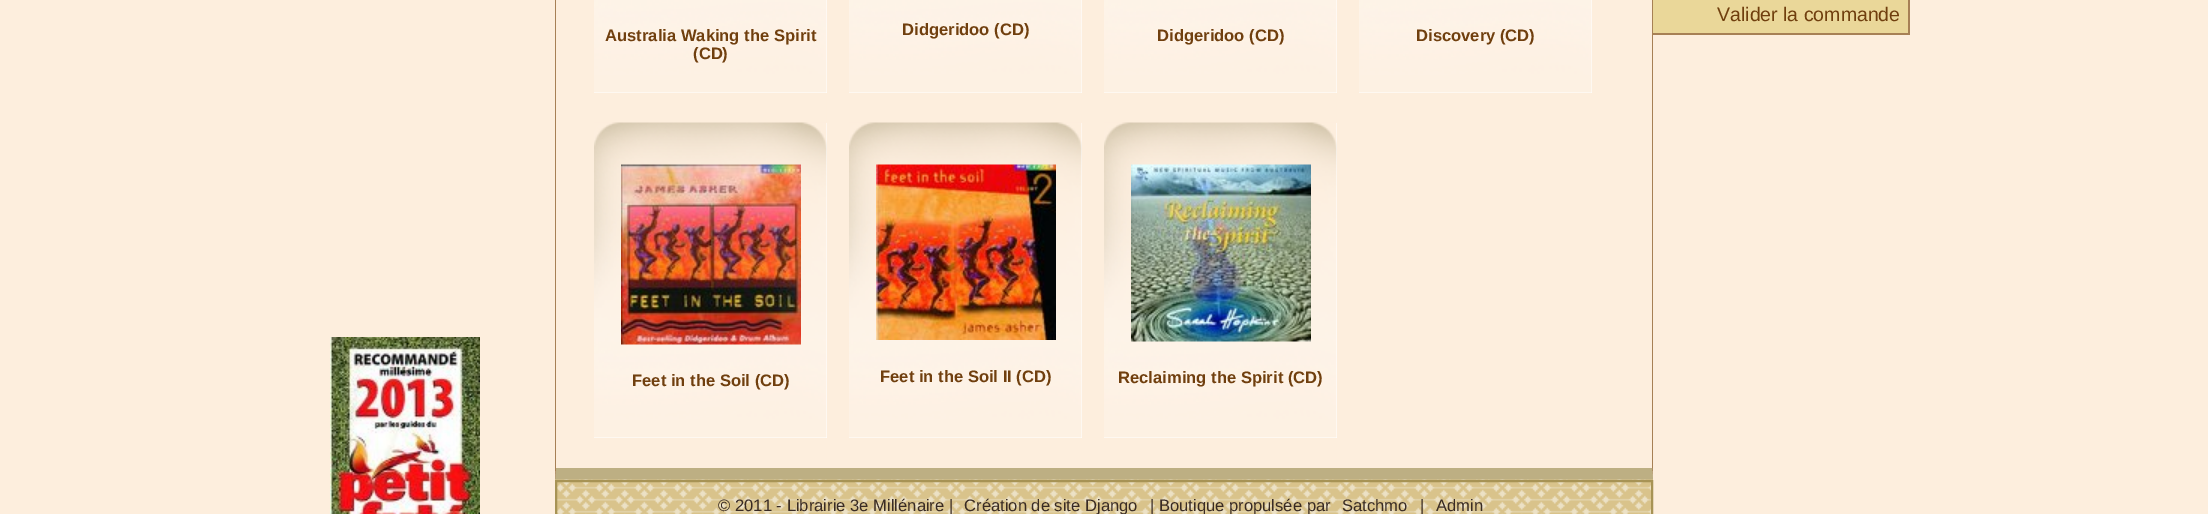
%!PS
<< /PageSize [2208 514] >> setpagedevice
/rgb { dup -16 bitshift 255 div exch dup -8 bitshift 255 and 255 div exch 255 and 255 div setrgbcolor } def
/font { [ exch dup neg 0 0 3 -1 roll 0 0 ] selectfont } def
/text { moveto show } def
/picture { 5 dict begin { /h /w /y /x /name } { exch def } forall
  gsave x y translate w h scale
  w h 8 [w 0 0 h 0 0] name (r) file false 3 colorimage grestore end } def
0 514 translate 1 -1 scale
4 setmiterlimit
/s1 { /LiberationSans-Regular 19.5 font 16#703F0E rgb } def
/s2 { /LiberationSans-Bold 16.6 font 16#703F0E rgb } def
/s3 { /LiberationSans-Regular 16.6 font 16#392B24 rgb } def
16#FDEEDD rgb
0 0 2208 514 rectfill
16#A78055 rgb
1908 0 2 35 rectfill
16#EAD799 rgb
1653 0 255 33 rectfill
16#A78055 rgb
1653 33 255 2 rectfill
s1
(Valider la commande) 1717 21 text
16#A78055 rgb
1653 -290 moveto 1653 480 lineto 1652 468 lineto 1652 -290 lineto closepath fill
16#BDAF83 rgb
1653 480 moveto 555 480 lineto 556 468 lineto 1652 468 lineto closepath fill
16#A78055 rgb
555 480 moveto 555 -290 lineto 556 -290 lineto 556 468 lineto closepath fill
16#FFFFFF rgb
594 0 233 93 rectfill
(pic1.raw) 594 0 233 93 picture
s2
(Australia Waking the Spirit) 605 41 text
(\(CD\)) 693 59 text
16#FFFFFF rgb
849 0 233 93 rectfill
(pic1.raw) 849 0 233 93 picture
s2
(Didgeridoo \(CD\)) 902 35 text
16#FFFFFF rgb
1104 0 233 93 rectfill
(pic1.raw) 1104 0 233 93 picture
s2
(Didgeridoo \(CD\)) 1157 41 text
16#FFFFFF rgb
1359 0 233 93 rectfill
(pic1.raw) 1359 0 233 93 picture
s2
(Discovery \(CD\)) 1416 41 text
16#FFFFFF rgb
594 123 233 315 rectfill
(pic2.raw) 594 122 233 316 picture
(pic3.raw) 621 164 180 181 picture
s2
(Feet in the Soil \(CD\)) 632 386 text
16#FFFFFF rgb
849 123 233 315 rectfill
(pic4.raw) 849 122 233 316 picture
(pic5.raw) 876 164 180 176 picture
s2
(Feet in the Soil II \(CD\)) 880 382 text
16#FFFFFF rgb
1104 123 233 315 rectfill
(pic2.raw) 1104 122 233 316 picture
(pic6.raw) 1131 164 180 178 picture
s2
(Reclaiming the Spirit \(CD\)) 1118 383 text
(pic7.raw) 330 337 150 177 picture
(pic8.raw) 555 479 1098 35 picture
16#A79355 rgb
2 setlinewidth
556 481 1096 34 rectstroke
s3
(© 2011 - Librairie 3e Millénaire |) 718 511 text
(Création de site Django) 964 511 text
(| Boutique propulsée par) 1150 511 text
(Satchmo) 1342 511 text
(|) 1420 511 text
(Admin) 1436 511 text
showpage
